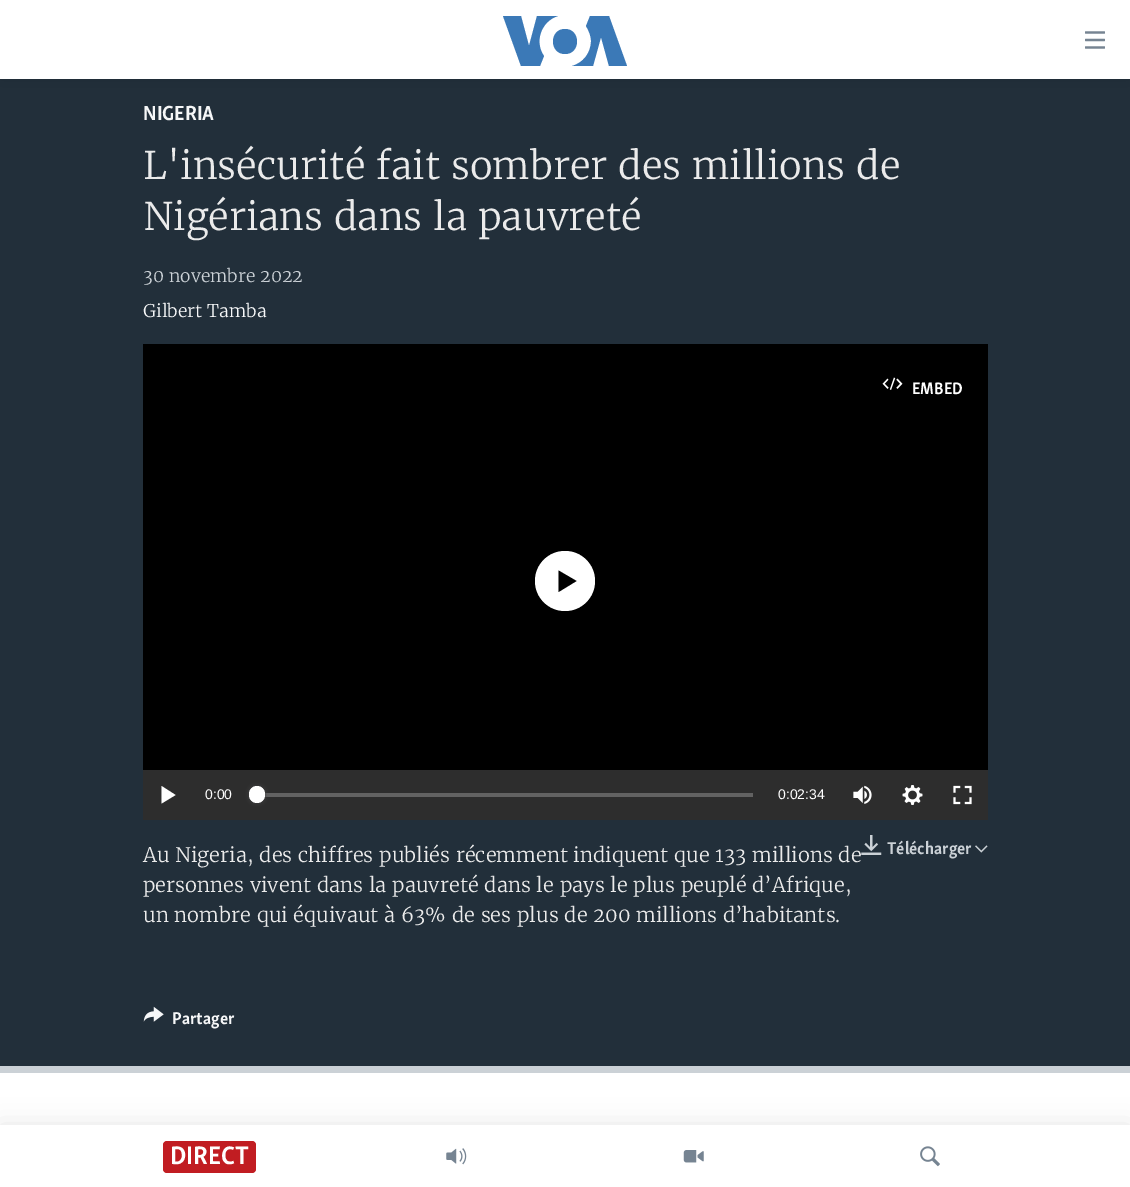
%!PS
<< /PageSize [1130 1187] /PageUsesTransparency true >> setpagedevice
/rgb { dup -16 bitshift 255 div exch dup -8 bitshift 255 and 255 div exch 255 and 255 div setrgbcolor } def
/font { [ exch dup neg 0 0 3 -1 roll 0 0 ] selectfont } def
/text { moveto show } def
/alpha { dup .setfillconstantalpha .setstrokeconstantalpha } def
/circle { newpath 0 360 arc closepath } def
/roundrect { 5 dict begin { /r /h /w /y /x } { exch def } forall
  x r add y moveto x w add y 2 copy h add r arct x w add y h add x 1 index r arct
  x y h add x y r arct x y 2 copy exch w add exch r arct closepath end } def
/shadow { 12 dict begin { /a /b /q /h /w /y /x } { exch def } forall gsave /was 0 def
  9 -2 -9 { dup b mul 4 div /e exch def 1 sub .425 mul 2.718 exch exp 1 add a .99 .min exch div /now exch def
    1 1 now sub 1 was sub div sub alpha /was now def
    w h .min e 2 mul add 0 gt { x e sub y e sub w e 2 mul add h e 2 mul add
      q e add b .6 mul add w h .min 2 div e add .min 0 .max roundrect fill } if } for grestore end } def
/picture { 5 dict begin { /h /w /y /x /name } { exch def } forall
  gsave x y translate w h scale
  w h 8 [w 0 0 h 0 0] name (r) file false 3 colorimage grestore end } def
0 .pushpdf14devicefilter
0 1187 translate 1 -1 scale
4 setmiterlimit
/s1 { /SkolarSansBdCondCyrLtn-Bold 21 font 16#F6F7F8 rgb } def
/s2 { /Merriweather-Light 38 font 16#EBEBEB rgb } def
/s3 { /Merriweather-Light 17.5 font 16#CBD1D6 rgb } def
/s4 { /Merriweather-Light 17.5 font 16#F6F7F8 rgb } def
/s5 { /SkolarSansBdCondCyrLtn-Bold 17 font 16#FFFFFF rgb } def
/s6 { /LiberationSans-Regular 14 font 16#FFFFFF rgb } def
/s7 { /Merriweather-Light 20 font 16#EBEBEB rgb } def
/s8 { /SkolarSansBdCondCyrLtn-Bold 17.5 font 16#CBD1D6 rgb } def
/s9 { /SkolarSansBdCondCyrLtn-Bold 17.5 font 16#F6F7F8 rgb } def
/s10 { /SkolarSansBdCondCyrLtn-Bold 26 font 16#FFFFFF rgb } def
16#FFFFFF rgb
0 0 1130 1187 rectfill
16#222F3A rgb
0 79 1130 987 rectfill
16#CBD1D6 rgb
0 1066 1130 7 rectfill
s1
(NIGERIA) 143 120 text
s2
(L'insécurité fait sombrer des millions de) 143 179 text
(Nigérians dans la pauvreté) 143 230 text
s3
(30 novembre 2022) 143 282 text
s4
(Gilbert Tamba) 143 317 text
16#000000 rgb
143 344 845 426 rectfill
(pic1.raw) 882 377 21 13 picture
s5
(EMBED) 912 394 text
565 581 30 circle fill
16#000000 rgb
558.5 592 moveto 576.5 581 lineto 558.5 570.5 lineto closepath fill
16#2D2D2D rgb
143 770 845 50 rectfill
16#FFFFFF rgb
161.5 803.5 moveto 175.5 795 lineto 161.5 786 lineto closepath fill
s6
(0:00) 205 799 text
16#626262 rgb
256 793 497 4 rectfill
16#414144 rgb
249 786 16 17 8 2 1 shadow
16#FFFFFF rgb
249 786 16 17 8 roundrect fill
(0:02:34) 778 799 text
(pic2.raw) 853 785 19 19 picture
(pic3.raw) 902 785 21 20 picture
(pic4.raw) 953 785 19 20 picture
s7
(Au Nigeria, des chiffres publiés récemment indiquent que 133 millions de) 143 862 text
(personnes vivent dans la pauvreté dans le pays le plus peuplé d’Afrique,) 143 892 text
(un nombre qui équivaut à 63% de ses plus de 200 millions d’habitants.) 143 922 text
(pic5.raw) 861 835 21 20 picture
s8
(Télécharger) 887 854 text
(pic6.raw) 975 845 13 8 picture
(pic7.raw) 143 1006 21 16 picture
s9
(Partager) 172 1024 text
16#000000 rgb
0 0 1130 79 0 12.5 0.1 shadow
16#FFFFFF rgb
0 0 1130 79 rectfill
16#3B79B7 rgb
544 56 moveto 540 66 lineto 521 66 lineto 503 16 lineto 521 16 lineto 529 46 lineto 537 16 lineto 558 16 lineto 541 21 534 42 544 56 curveto closepath 565 29 moveto 549 29 549 54 565 54 curveto 581 54 581 29 565 29 curveto closepath 591 41 moveto 591 53 583 63 572 66 curveto 593 66 lineto 601 37 lineto 609 66 lineto 627 66 lineto 609 16 lineto 590 16 lineto 586 26 lineto 589 31 591 36 591 41 curveto closepath fill
(pic8.raw) 1085 31 20 18 picture
16#000000 rgb
0 1125 1130 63 0 12.5 0.1 shadow
16#FFFFFF rgb
0 1125 1130 62 rectfill
16#C11D22 rgb
163 1141 93 32 4 roundrect fill
s10
(DIRECT) 170 1164 text
(pic9.raw) 446 1148 21 17 picture
(pic10.raw) 683 1150 21 13 picture
(pic11.raw) 920 1146 20 21 picture
.poppdf14devicefilter showpage
